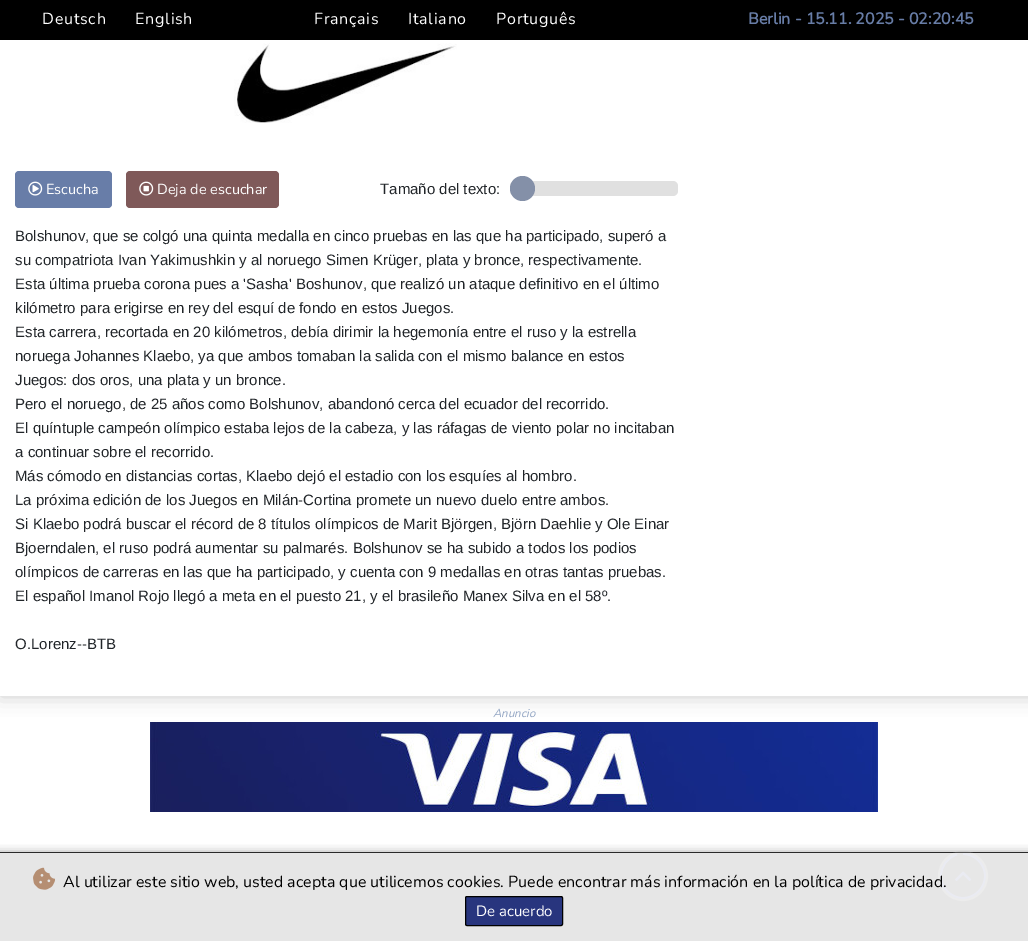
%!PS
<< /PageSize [1028 941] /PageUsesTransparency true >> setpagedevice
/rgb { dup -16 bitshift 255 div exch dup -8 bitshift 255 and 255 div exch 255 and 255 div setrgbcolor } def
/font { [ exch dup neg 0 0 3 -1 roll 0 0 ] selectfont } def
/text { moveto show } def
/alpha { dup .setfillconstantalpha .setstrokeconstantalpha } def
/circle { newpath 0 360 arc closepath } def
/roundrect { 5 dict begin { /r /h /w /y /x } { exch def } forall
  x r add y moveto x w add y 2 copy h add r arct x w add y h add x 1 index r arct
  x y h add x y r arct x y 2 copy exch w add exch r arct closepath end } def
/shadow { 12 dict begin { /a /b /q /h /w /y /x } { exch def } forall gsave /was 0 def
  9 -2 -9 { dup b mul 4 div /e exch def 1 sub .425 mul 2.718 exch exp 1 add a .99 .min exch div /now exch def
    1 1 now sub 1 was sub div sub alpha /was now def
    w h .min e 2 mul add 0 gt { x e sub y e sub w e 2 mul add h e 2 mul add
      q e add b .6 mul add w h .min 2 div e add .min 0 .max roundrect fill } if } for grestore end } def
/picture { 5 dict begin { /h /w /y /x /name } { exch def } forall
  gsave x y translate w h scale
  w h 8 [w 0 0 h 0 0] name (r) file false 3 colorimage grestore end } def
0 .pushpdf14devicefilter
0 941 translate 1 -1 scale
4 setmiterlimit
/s1 { /Nunito-Bold 16 font 16#687DA7 rgb } def
/s2 { /Nunito-ExtraLight 14.5 font 16#FFFFFF rgb } def
/s3 { /LiberationSans-Regular 15 font 16#212529 rgb } def
/s4 { /Nunito-ExtraLightItalic 11.5 font 16#92A5C3 rgb } def
/s5 { /Nunito-ExtraLight 16 font 16#000000 rgb } def
/s6 { /Nunito-ExtraLight 15 font 16#FFFFFF rgb } def
16#FFFFFF rgb
0 0 1028 941 rectfill
(pic5.raw) 150 722 728 90 picture
gsave
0 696 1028 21 rectclip
16#CACACA rgb
0 -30 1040 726 0 10 1 shadow
grestore
16#000000 rgb
0 0 1028 40 rectfill
/Nunito-ExtraLight 16 font
16#FFFFFF rgb
42 24 moveto 0.75 0 (Deutsch) ashow
135 24 moveto 0.75 0 (English) ashow
314 24 moveto 0.75 0 (Français) ashow
408 24 moveto 0.75 0 (Italiano) ashow
496 24 moveto 0.75 0 (Português) ashow
s1
(Berlin - 15.11. 2025 - 02:20:45) 748 24 text
(pic1.raw) 234 43 223 80 picture
16#687DA8 rgb
15 171 97 37 4 roundrect fill
(pic2.raw) 28 181 15 15 picture
s2
(Escucha) 46 194 text
16#7F5959 rgb
126 171 153 37 4 roundrect fill
(pic3.raw) 139 181 15 15 picture
s2
(Deja de escuchar) 157 194 text
s3
(Tamaño del texto:) 380 194 text
16#E0E0E0 rgb
510 181 168 15 5 roundrect fill
16#8490A8 rgb
522.5 188.5 12.5 circle fill
s3
(Bolshunov, que se colgó una quinta medalla en cinco pruebas en las que ha participado, superó a) 15 241 text
(su compatriota Ivan Yakimushkin y al noruego Simen Krüger, plata y bronce, respectivamente.) 15 265 text
(Esta última prueba corona pues a 'Sasha' Boshunov, que realizó un ataque definitivo en el último) 15 289 text
(kilómetro para erigirse en rey del esquí de fondo en estos Juegos.) 15 313 text
(Esta carrera, recortada en 20 kilómetros, debía dirimir la hegemonía entre el ruso y la estrella) 15 337 text
(noruega Johannes Klaebo, ya que ambos tomaban la salida con el mismo balance en estos) 15 361 text
(Juegos: dos oros, una plata y un bronce.) 15 385 text
(Pero el noruego, de 25 años como Bolshunov, abandonó cerca del ecuador del recorrido.) 15 409 text
(El quíntuple campeón olímpico estaba lejos de la cabeza, y las ráfagas de viento polar no incitaban) 15 433 text
(a continuar sobre el recorrido.) 15 457 text
(Más cómodo en distancias cortas, Klaebo dejó el estadio con los esquíes al hombro.) 15 481 text
(La próxima edición de los Juegos en Milán-Cortina promete un nuevo duelo entre ambos.) 15 505 text
(Si Klaebo podrá buscar el récord de 8 títulos olímpicos de Marit Björgen, Björn Daehlie y Ole Einar) 15 529 text
(Bjoerndalen, el ruso podrá aumentar su palmarés. Bolshunov se ha subido a todos los podios) 15 553 text
(olímpicos de carreras en las que ha participado, y cuenta con 9 medallas en otras tantas pruebas.) 15 577 text
(El español Imanol Rojo llegó a meta en el puesto 21, y el brasileño Manex Silva en el 58º.) 15 601 text
(O.Lorenz--BTB) 15 649 text
16#000000 rgb
0 852 1028 89 rectfill
0.1 alpha
16#545454 rgb
963 876 25 circle fill
0.2 alpha
16#FFFFFF rgb
2 setlinewidth
963 876 24 circle stroke
1 alpha
16#28357E rgb
1.8 setlinewidth
963 854 moveto 975 854 985 864 985 876 curveto 985 888 975 898 963 898 curveto 951 898 941 888 941 876 curveto 941 866 947.5 857.5 957 854.5 curveto stroke
(pic4.raw) 955 871 17 10 picture
s4
(Anuncio) 493 717 text
gsave
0 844 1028 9 rectclip
16#797979 rgb
-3 854 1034 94 0 5 1 shadow
grestore
0.9 alpha
16#FFFFFF rgb
0 853 1028 88 rectfill
1 alpha
(pic6.raw) 33 867 22 23 picture
s5
(Al utilizar este sitio web, usted acepta que utilicemos cookies. Puede encontrar más información en la política de privacidad.) 63 887 text
16#28357E rgb
465.5 896.5 97 29 1.5 roundrect gsave fill grestore
16#000000 rgb
1 setlinewidth
stroke
s6
(De acuerdo) 476 916 text
.poppdf14devicefilter showpage
